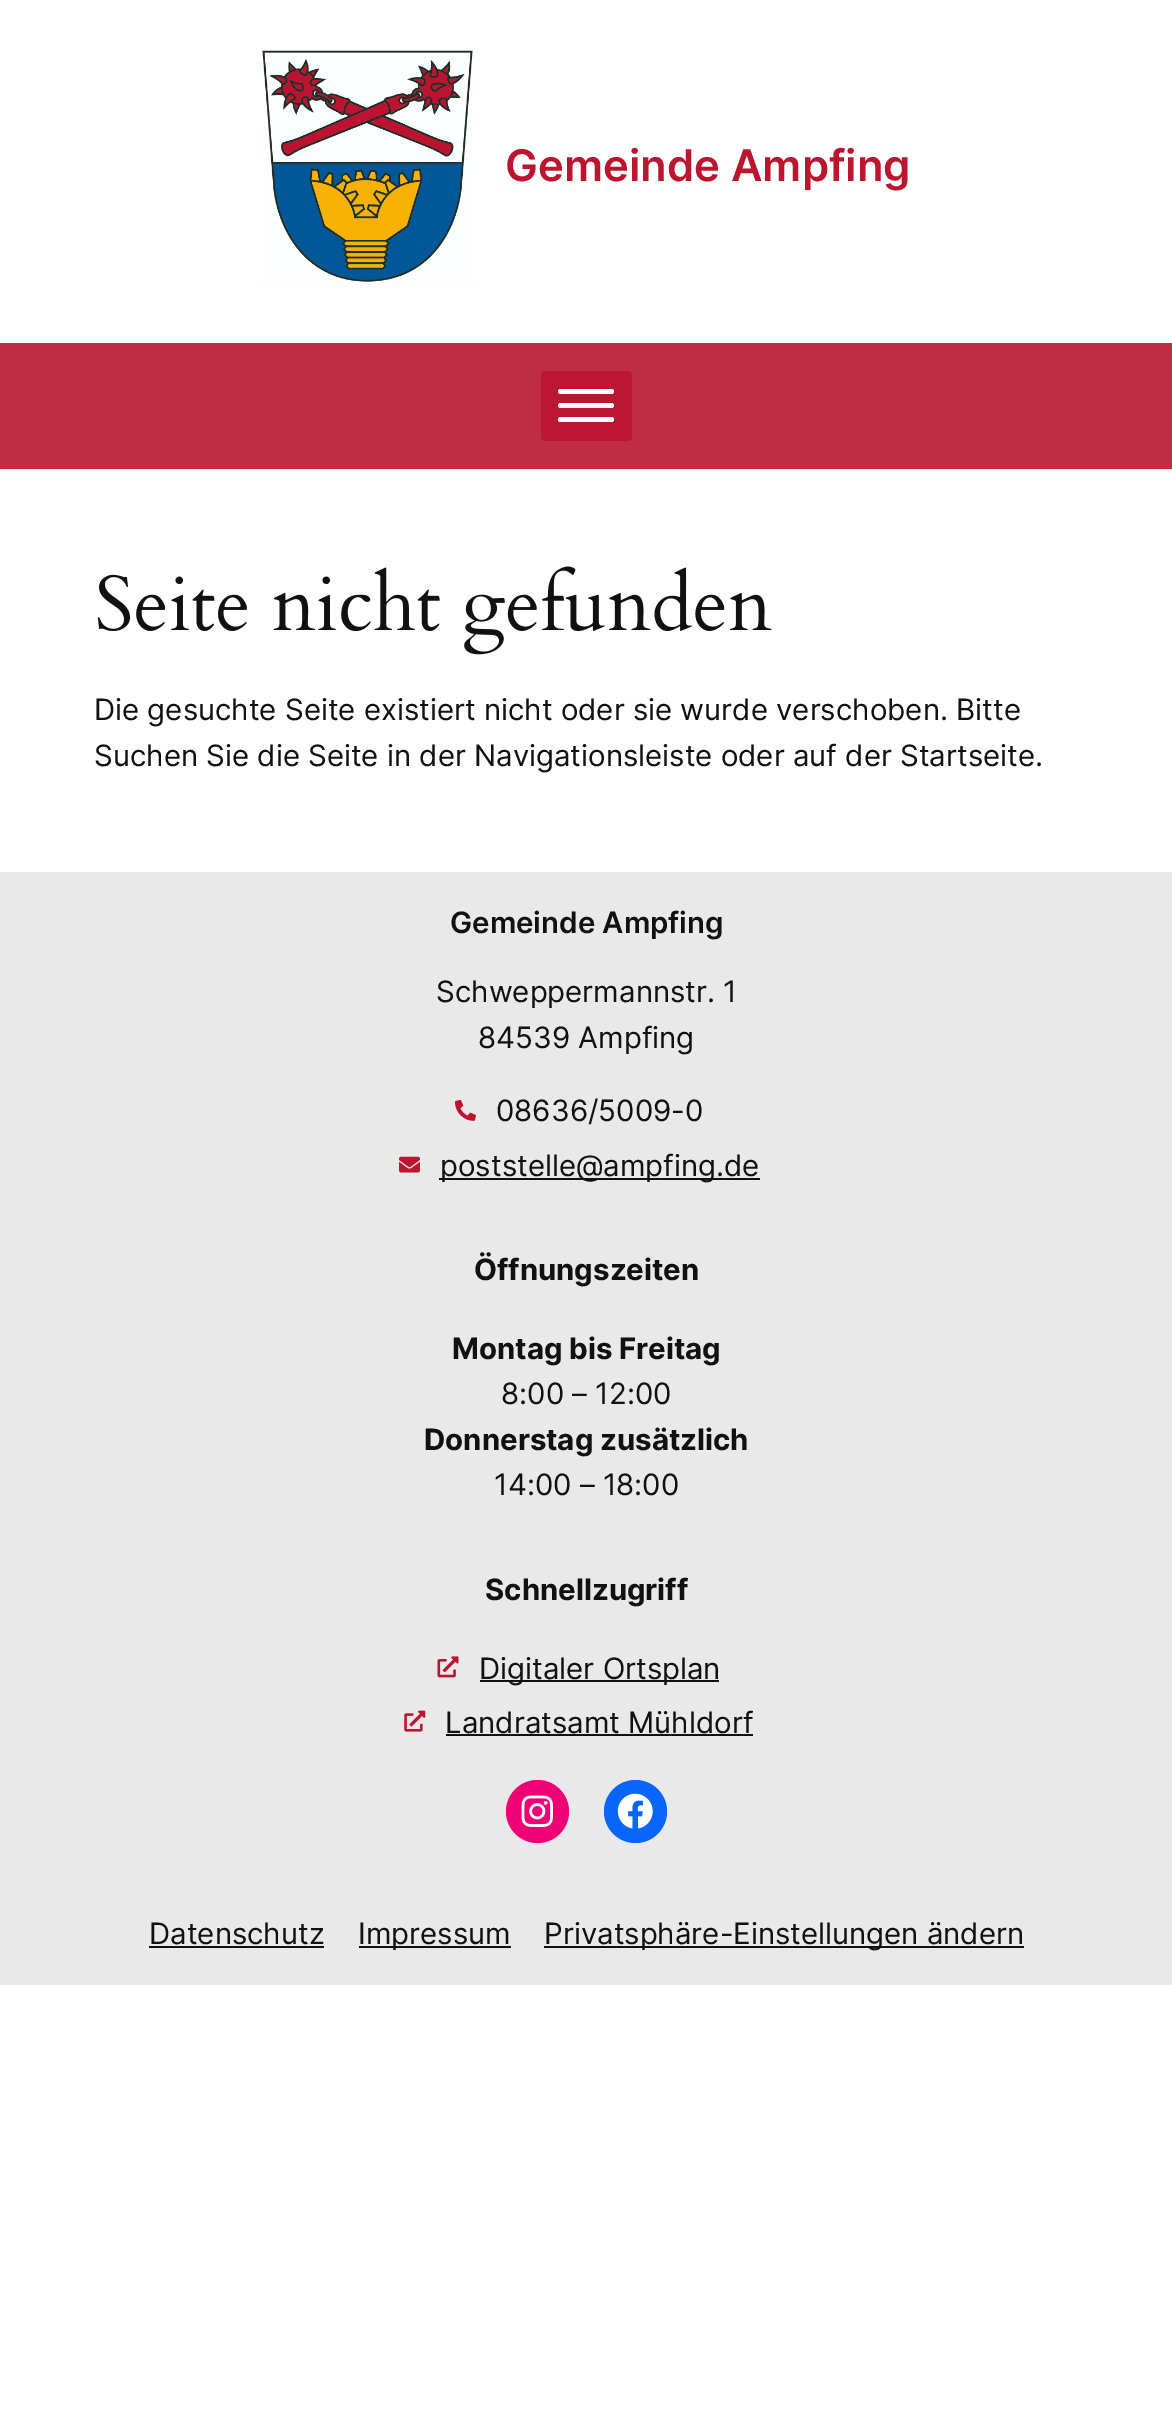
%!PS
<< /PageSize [1172 2432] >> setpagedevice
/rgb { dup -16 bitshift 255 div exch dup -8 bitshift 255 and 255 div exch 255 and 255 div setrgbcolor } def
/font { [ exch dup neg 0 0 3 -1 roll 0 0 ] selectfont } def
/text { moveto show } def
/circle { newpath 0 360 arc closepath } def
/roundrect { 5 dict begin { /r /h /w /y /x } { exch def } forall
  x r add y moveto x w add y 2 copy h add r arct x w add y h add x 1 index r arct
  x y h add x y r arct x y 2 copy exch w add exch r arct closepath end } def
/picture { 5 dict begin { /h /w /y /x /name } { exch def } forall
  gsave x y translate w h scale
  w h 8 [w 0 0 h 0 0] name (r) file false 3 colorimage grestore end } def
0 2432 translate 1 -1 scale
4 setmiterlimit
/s1 { /Inter-SemiBold 43.6 font 16#BB1530 rgb } def
/s2 { /Inter-Regular 29.4 font 16#111111 rgb } def
/s3 { /Inter-SemiBold 29.4 font 16#111111 rgb } def
/s4 { /Inter-Bold 29.4 font 16#111111 rgb } def
16#FFFFFF rgb
0 0 1172 2432 rectfill
(pic1.raw) 262 50 211 232 picture
s1
(Gemeinde Ampfing) 505 181 text
16#C12C45 rgb
0 343 1172 126 rectfill
16#BB1632 rgb
541 371 91 70 4 roundrect fill
16#FFFFFF rgb
558 389 56 5 2.5 roundrect fill
558 403 56 5 2.5 roundrect fill
558 417 56 5 2.5 roundrect fill
(pic2.raw) 97 566 675 89 picture
s2
(Die gesuchte Seite existiert nicht oder sie wurde verschoben. Bitte) 94 720 text
(Suchen Sie die Seite in der Navigationsleiste oder auf der Startseite.) 94 766 text
16#E9E9E9 rgb
0 872 1172 1113 rectfill
s3
(Gemeinde Ampfing) 450 933 text
s2
(Schweppermannstr. 1) 436 1002 text
(84539 Ampfing) 478 1048 text
(pic3.raw) 455 1099 21 22 picture
(08636/5009-0) 496 1121 text
(pic4.raw) 399 1156 21 17 picture
439 1178 321 2 rectfill
(poststelle@ampfing.de) 440 1176 text
s4
(Öffnungszeiten) 474 1280 text
(Montag bis Freitag) 452 1359 text
s2
(8:00 – 12:00) 501 1404 text
s4
(Donnerstag zusätzlich) 424 1450 text
s2
(14:00 – 18:00) 494 1495 text
s4
(Schnellzugriff) 485 1600 text
(pic5.raw) 437 1656 22 22 picture
480 1680 239 2 rectfill
s2
(Digitaler Ortsplan) 479 1679 text
(pic6.raw) 404 1710 22 22 picture
(Landratsamt Mühldorf) 445 1733 text
446 1734 307 2 rectfill
16#F00075 rgb
537.5 1811.5 31.5 circle fill
(pic7.raw) 521 1795 32 32 picture
16#0866FF rgb
635.5 1811.5 31.5 circle fill
(pic8.raw) 617 1793 36 36 picture
s2
(Datenschutz) 149 1944 text
149 1946 175 2 rectfill
359 1946 152 2 rectfill
(Impressum) 358 1944 text
544 1946 480 2 rectfill
(Privatsphäre-Einstellungen ändern) 544 1944 text
showpage
